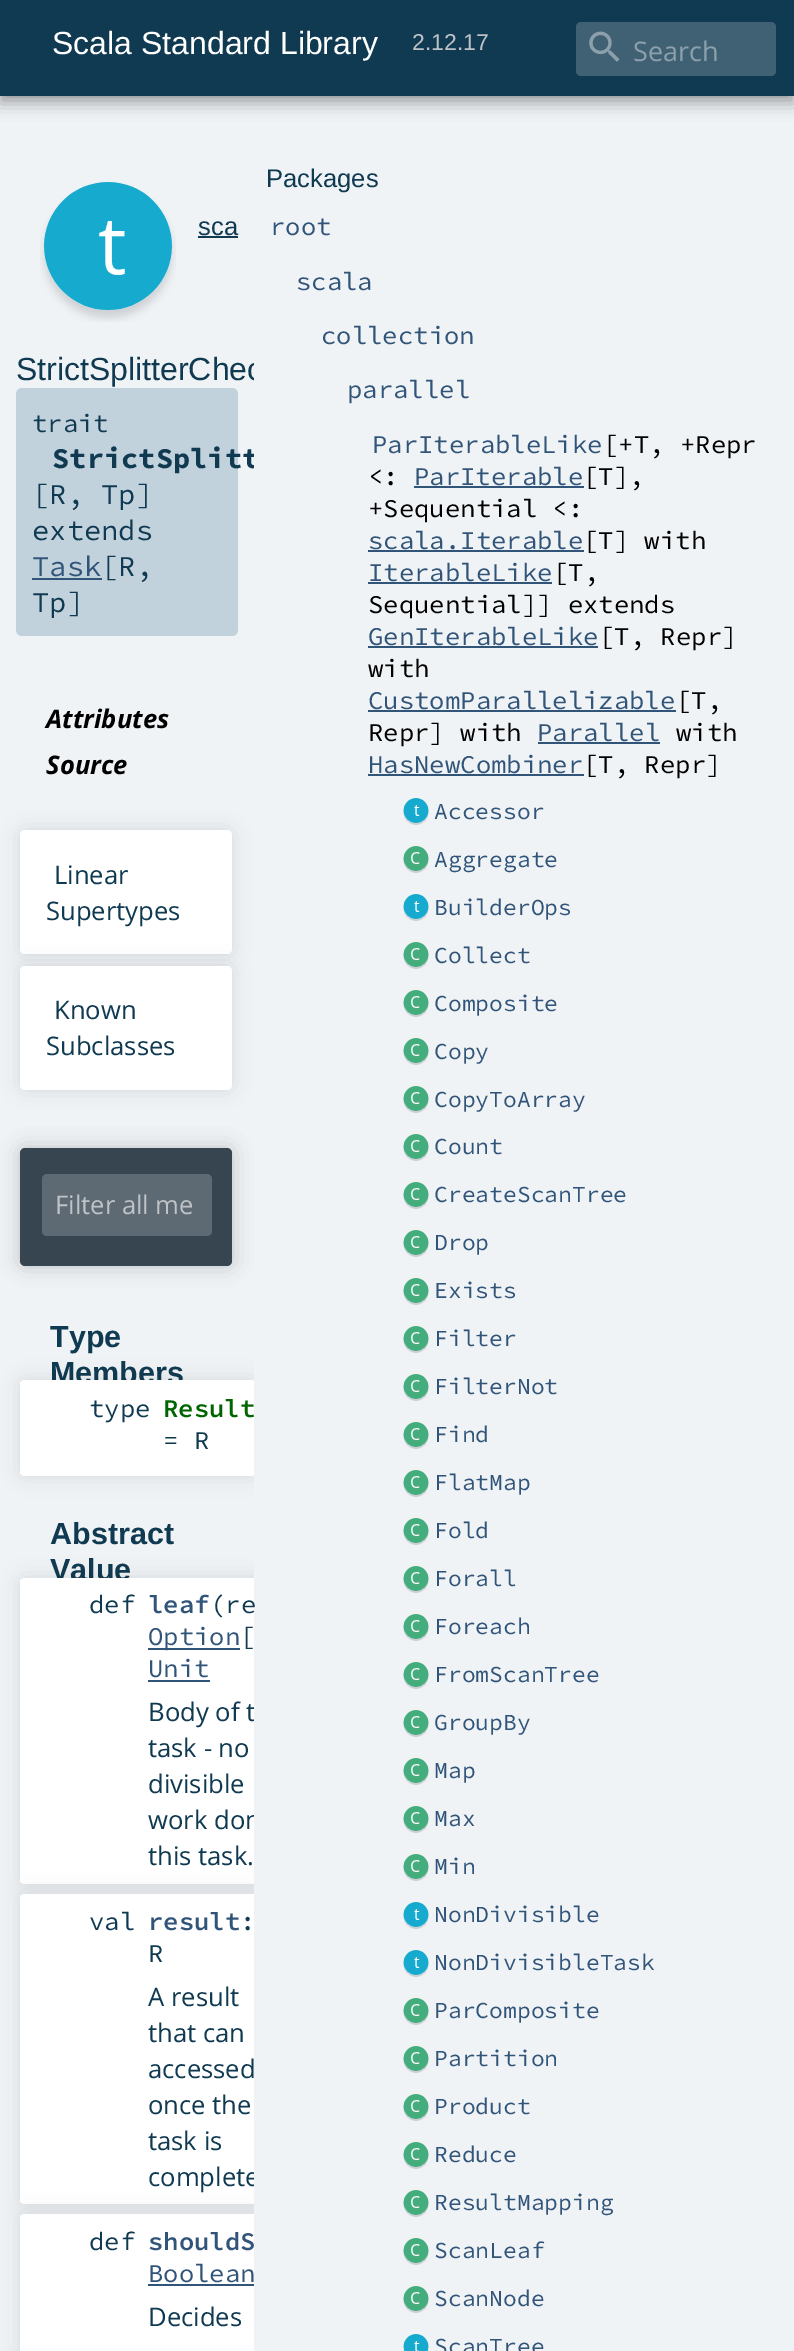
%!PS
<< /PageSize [794 2351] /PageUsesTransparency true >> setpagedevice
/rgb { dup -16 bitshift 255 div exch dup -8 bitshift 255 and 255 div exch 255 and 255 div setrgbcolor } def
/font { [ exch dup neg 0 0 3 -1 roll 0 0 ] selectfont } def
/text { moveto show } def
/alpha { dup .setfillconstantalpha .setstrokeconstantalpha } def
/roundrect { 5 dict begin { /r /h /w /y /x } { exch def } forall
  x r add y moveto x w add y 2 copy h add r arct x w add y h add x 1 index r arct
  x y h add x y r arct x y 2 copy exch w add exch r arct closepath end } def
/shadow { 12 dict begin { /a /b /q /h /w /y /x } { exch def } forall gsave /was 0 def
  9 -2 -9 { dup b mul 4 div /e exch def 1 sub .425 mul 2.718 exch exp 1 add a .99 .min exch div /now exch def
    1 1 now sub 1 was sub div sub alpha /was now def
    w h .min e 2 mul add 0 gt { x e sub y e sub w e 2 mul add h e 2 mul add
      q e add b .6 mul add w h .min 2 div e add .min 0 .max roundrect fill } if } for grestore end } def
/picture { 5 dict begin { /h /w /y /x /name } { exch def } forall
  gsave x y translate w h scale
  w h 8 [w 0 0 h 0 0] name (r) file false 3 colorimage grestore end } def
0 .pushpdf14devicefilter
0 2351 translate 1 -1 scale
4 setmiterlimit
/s1 { /LiberationSans-Regular 32 font 16#FFFFFF rgb } def
/s2 { /LiberationSans-Regular 23 font 16#BFC3C7 rgb } def
/s3 { /OpenSans-Regular 27 font 16#8CA0AC rgb } def
/s4 { /LiberationSans-Regular 25.6 font 16#103A51 rgb } def
/s5 { /LiberationSans-Regular 32 font 16#103A51 rgb } def
/s6 { /SourceCodePro-Regular 25.6 font 16#103A51 rgb } def
/s7 { /SourceCodePro-Bold 28.75 font 16#103A51 rgb } def
/s8 { /SourceCodePro-Regular 28.75 font 16#103A51 rgb } def
/s9 { /SourceCodePro-Regular 28.75 font 16#315479 rgb } def
/s10 { /OpenSans-BoldItalic 25.6 font 16#000000 rgb } def
/s11 { /OpenSans-Regular 25.6 font 16#103A51 rgb } def
/s12 { /OpenSans-Regular 25.6 font 16#BFC3C7 rgb } def
/s13 { /LiberationSans-Bold 30.5 font 16#103A51 rgb } def
/s14 { /SourceCodePro-SemiBold 25.6 font 16#006400 rgb } def
/s15 { /SourceCodePro-SemiBold 25.6 font 16#315479 rgb } def
/s16 { /SourceCodePro-Regular 25.6 font 16#315479 rgb } def
/s17 { /SourceCodePro-Regular 25.6 font 16#000000 rgb } def
/s18 { /SourceCodePro-Regular 23 font 16#315479 rgb } def
16#F0F3F6 rgb
0 0 794 2351 rectfill
16#000000 rgb
0 8 794 96 0 8 0.28 shadow
0 0 794 96 0 4 0.18 shadow
16#103A51 rgb
0 0 794 96 rectfill
s1
(Scala Standard Library) 52 54 text
s2
(2.12.17) 412 50 text
16#406174 rgb
576 22 200 54 5 roundrect fill
(pic1.raw) 589 31 31 31 picture
s3
(Search) 633 61 text
(pic2.raw) 40 182 136 140 picture
s4
(sca) 198 235 text
198 236 40 2 rectfill
gsave
16 352 238 36 rectclip
s5
(StrictSplitterChec) 16 380 text
grestore
16#C2D2DC rgb
16 388 222 248 6 roundrect fill
s6
(trait) 32 432 text
gsave
0 128 254 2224 rectclip
s7
(StrictSplitt) 52 468 text
grestore
s8
([R, Tp]) 32 504 text
(extends) 32 540 text
s9
(Task) 32 576 text
s8
([R,) 101 576 text
16#315479 rgb
32 578 70 2 rectfill
s8
(Tp]) 32 612 text
s10
(Attributes) 46 728 text
(Source) 46 774 text
20 830 212 124 5 10 0.1 shadow
16#FFFFFF rgb
20 830 212 124 5 roundrect fill
s11
(Linear) 54 884 text
(Supertypes) 46 920 text
16#000000 rgb
20 966 212 124 5 10 0.1 shadow
16#FFFFFF rgb
20 966 212 124 5 roundrect fill
s11
(Known) 54 1019 text
(Subclasses) 46 1055 text
16#000000 rgb
20 1148 212 118 5 10 0.2 shadow
16#364550 rgb
20 1148 212 118 5 roundrect fill
16#5E6A73 rgb
42 1174 170 62 5 roundrect fill
s12
(Filter all me) 55 1214 text
s13
(Type) 50 1347 text
(Members) 50 1383 text
gsave
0 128 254 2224 rectclip
16#000000 rgb
20 1380 236 96 5 10 0.1 shadow
grestore
gsave
0 128 254 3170 rectclip
16#FFFFFF rgb
20 1380 236 96 5 roundrect fill
grestore
16#FFFFFF rgb
20 1382 1 92 rectfill
s6
(type) 89 1417 text
s14
(Result) 163 1417 text
s6
(= R) 163 1449 text
s13
(Abstract) 50 1544 text
(Value) 50 1580 text
gsave
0 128 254 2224 rectclip
16#000000 rgb
20 1578 312 306 5 10 0.1 shadow
grestore
16#FFFFFF rgb
25 1578 moveto 254 1578 lineto 254 1884 lineto 25 1884 lineto 22 1884 20 1882 20 1879 curveto 20 1583 lineto 20 1580 22 1578 25 1578 curveto closepath fill
20 1580 1 302 rectfill
s6
(def) 89 1613 text
s15
(leaf) 148 1613 text
s6
(\(re) 210 1613 text
16#315479 rgb
148 1648 92 2 rectfill
(Option) 148 1645 text
s6
([) 240 1645 text
s16
(Unit) 148 1677 text
148 1680 62 2 rectfill
gsave
0 128 254 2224 rectclip
s11
(Body of t) 148 1721 text
grestore
s11
(task - no) 148 1757 text
(divisible) 148 1793 text
gsave
0 128 254 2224 rectclip
(work don) 148 1829 text
grestore
(this task.) 148 1865 text
gsave
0 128 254 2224 rectclip
16#000000 rgb
20 1894 262 310 5 10 0.1 shadow
grestore
16#FFFFFF rgb
25 1894 moveto 254 1894 lineto 254 2204 lineto 25 2204 lineto 22 2204 20 2202 20 2199 curveto 20 1899 lineto 20 1896 22 1894 25 1894 curveto closepath fill
20 1896 1 306 rectfill
s6
(val) 89 1930 text
s15
(result) 148 1930 text
s6
(:) 240 1930 text
(R) 148 1962 text
s11
(A result) 148 2006 text
(that can) 148 2042 text
(accessed) 148 2078 text
(once the) 148 2114 text
(task is) 148 2150 text
gsave
0 128 254 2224 rectclip
(complete) 148 2186 text
grestore
(pic4.raw) 403 2190 26 27 picture
(pic4.raw) 403 2238 26 27 picture
(pic4.raw) 403 2286 26 27 picture
(pic7.raw) 403 2334 26 17 picture
gsave
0 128 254 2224 rectclip
16#000000 rgb
20 2214 420 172 5 10 0.1 shadow
grestore
16#FFFFFF rgb
25 2214 moveto 254 2214 lineto 254 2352 lineto 20 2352 lineto 20 2219 lineto 20 2216 22 2214 25 2214 curveto closepath fill
20 2216 1 2 rectfill
s6
(def) 89 2250 text
s15
(shouldS) 148 2250 text
s16
(Boolean) 148 2282 text
148 2284 106 2 rectfill
s11
(Decides) 148 2326 text
s4
(Packages) 266 187 text
s16
(root) 270 235 text
(scala) 296 290 text
(collection) 321 344 text
(parallel) 347 398 text
(ParIterableLike) 372 453 text
s17
([+T, +Repr) 603 453 text
(<:) 368 485 text
s16
(ParIterable) 414 485 text
414 486 170 2 rectfill
s17
([T],) 583 485 text
(+Sequential <:) 368 517 text
s16
(scala.Iterable) 368 549 text
368 550 216 2 rectfill
s17
([T] with) 583 549 text
s16
(IterableLike) 368 581 text
368 582 184 2 rectfill
s17
([T,) 553 581 text
(Sequential]] extends) 368 613 text
s16
(GenIterableLike) 368 645 text
368 646 230 2 rectfill
s17
([T, Repr]) 599 645 text
(with) 368 677 text
s16
(CustomParallelizable) 368 709 text
368 710 308 2 rectfill
s17
([T,) 676 709 text
(Repr] with) 368 741 text
s16
(Parallel) 537 741 text
538 742 122 2 rectfill
s17
(with) 676 741 text
s16
(HasNewCombiner) 368 773 text
368 774 216 2 rectfill
s17
([T, Repr]) 583 773 text
(pic3.raw) 403 798 26 27 picture
s18
(Accessor) 434 819 text
(pic4.raw) 403 846 26 27 picture
(Aggregate) 434 867 text
(pic3.raw) 403 894 26 27 picture
(BuilderOps) 434 915 text
(pic4.raw) 403 942 26 27 picture
(Collect) 434 963 text
(pic4.raw) 403 990 26 27 picture
(Composite) 434 1011 text
(pic4.raw) 403 1038 26 27 picture
(Copy) 434 1059 text
(pic4.raw) 403 1086 26 27 picture
(CopyToArray) 434 1107 text
(pic4.raw) 403 1134 26 27 picture
(Count) 434 1154 text
(pic4.raw) 403 1182 26 27 picture
(CreateScanTree) 434 1202 text
(pic4.raw) 403 1230 26 27 picture
(Drop) 434 1250 text
(pic4.raw) 403 1278 26 27 picture
(Exists) 434 1298 text
(pic4.raw) 403 1326 26 27 picture
(Filter) 434 1346 text
(pic4.raw) 403 1374 26 27 picture
(FilterNot) 434 1394 text
(pic4.raw) 403 1422 26 27 picture
(Find) 434 1442 text
(pic4.raw) 403 1470 26 27 picture
(FlatMap) 434 1490 text
(pic5.raw) 403 1518 26 27 picture
(Fold) 434 1538 text
(pic4.raw) 403 1566 26 27 picture
(Forall) 434 1586 text
(pic4.raw) 403 1614 26 27 picture
(Foreach) 434 1634 text
(pic4.raw) 403 1662 26 27 picture
(FromScanTree) 434 1682 text
(pic4.raw) 403 1710 26 27 picture
(GroupBy) 434 1730 text
(pic6.raw) 403 1758 26 27 picture
(Map) 434 1778 text
(pic4.raw) 403 1806 26 27 picture
(Max) 434 1826 text
(pic4.raw) 403 1854 26 27 picture
(Min) 434 1874 text
(pic3.raw) 403 1902 26 27 picture
(NonDivisible) 434 1922 text
(pic3.raw) 403 1950 26 27 picture
(NonDivisibleTask) 434 1970 text
(pic4.raw) 403 1998 26 27 picture
(ParComposite) 434 2018 text
(pic4.raw) 403 2046 26 27 picture
(Partition) 434 2066 text
(pic4.raw) 403 2094 26 27 picture
(Product) 434 2114 text
(pic4.raw) 403 2142 26 27 picture
(Reduce) 434 2162 text
(ResultMapping) 434 2210 text
(ScanLeaf) 434 2258 text
(ScanNode) 434 2306 text
(ScanTree) 434 2354 text
.poppdf14devicefilter showpage
